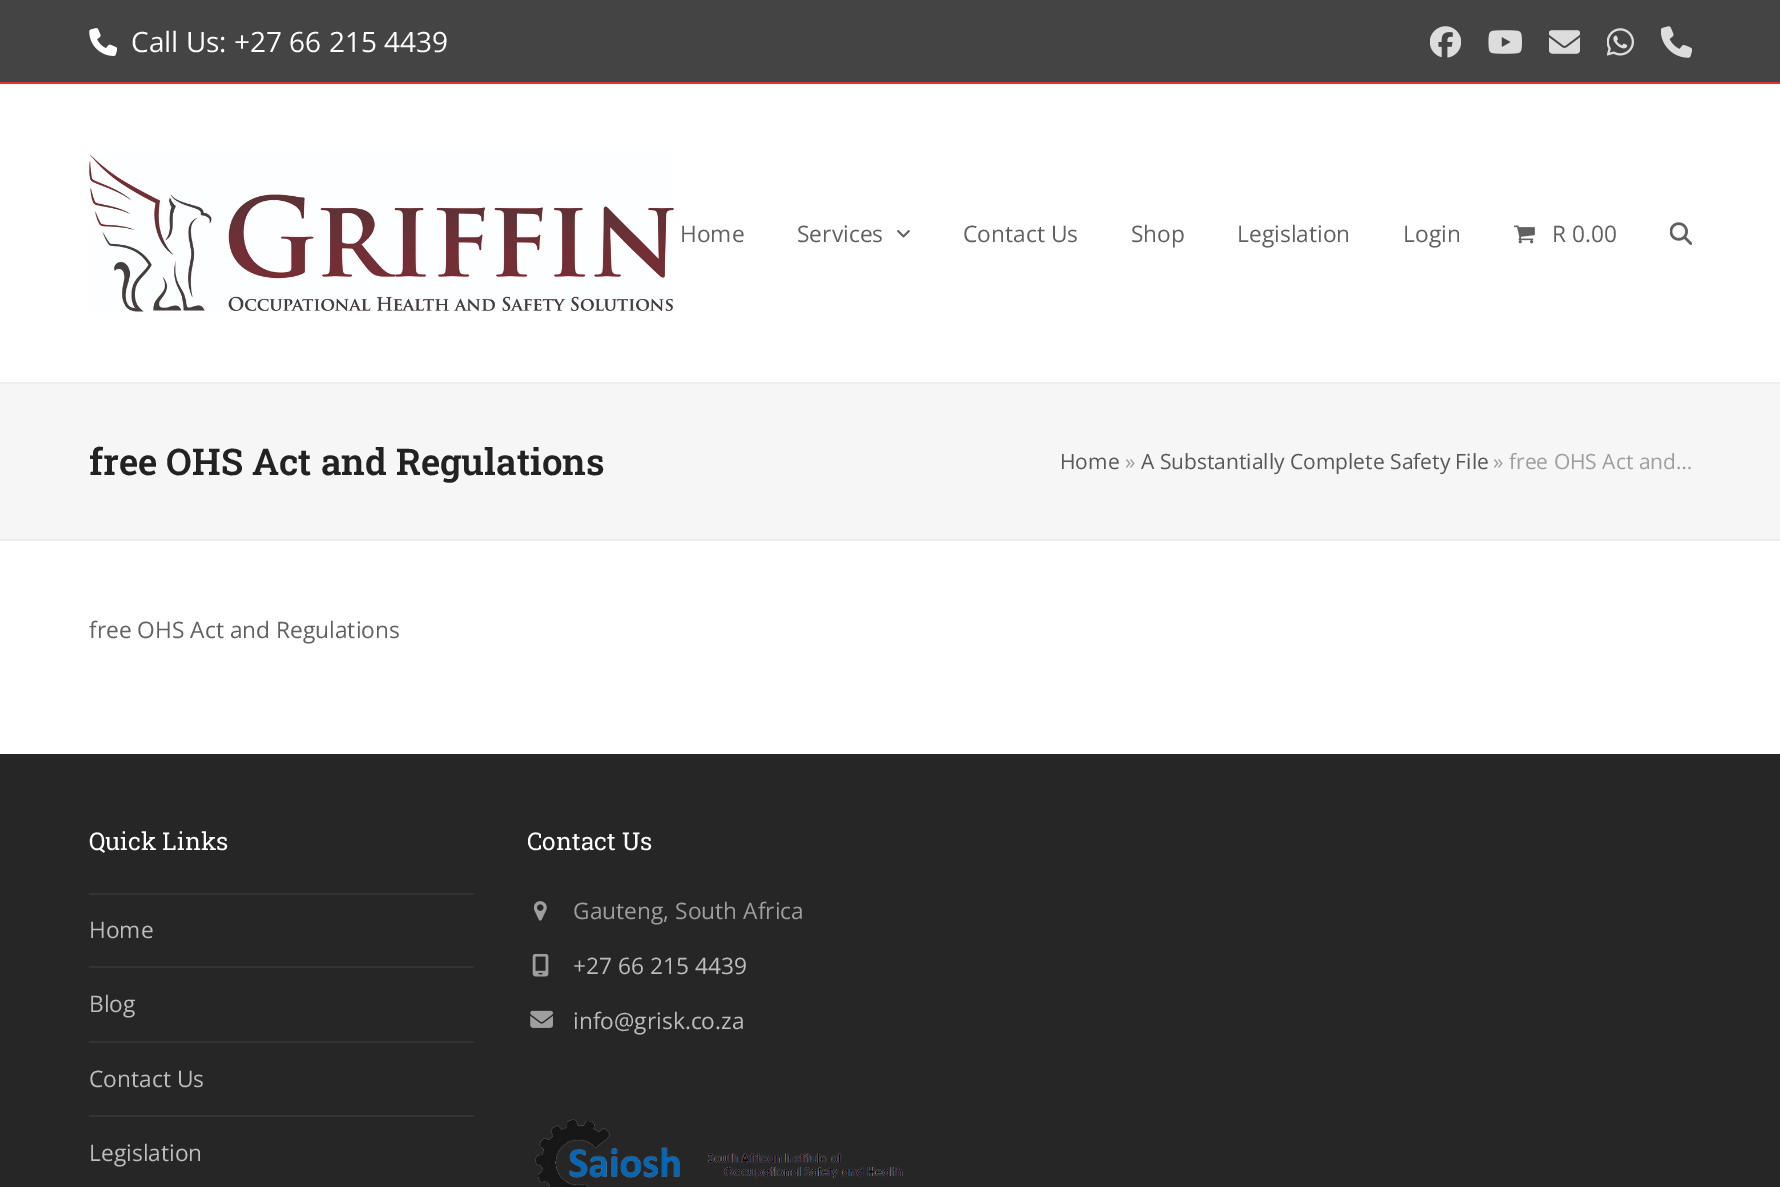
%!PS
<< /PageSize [1780 1187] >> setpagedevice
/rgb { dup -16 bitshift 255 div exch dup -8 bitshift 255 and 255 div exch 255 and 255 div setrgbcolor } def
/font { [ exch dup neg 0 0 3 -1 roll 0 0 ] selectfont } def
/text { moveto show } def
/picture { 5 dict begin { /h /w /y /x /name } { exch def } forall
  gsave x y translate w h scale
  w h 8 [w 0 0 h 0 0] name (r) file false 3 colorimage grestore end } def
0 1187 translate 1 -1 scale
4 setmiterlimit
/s1 { /OpenSans-Regular 28 font 16#FFFFFF rgb } def
/s2 { /OpenSans-Regular 22.75 font 16#616161 rgb } def
/s3 { /RobotoSlab-SemiBold 36.75 font 16#222222 rgb } def
/s4 { /OpenSans-Regular 21 font 16#585858 rgb } def
/s5 { /OpenSans-Regular 21 font 16#9E9E9E rgb } def
/s6 { /RobotoSlab-Regular 24.5 font 16#FFFFFF rgb } def
/s7 { /OpenSans-Regular 22.75 font 16#BDBDBD rgb } def
/s8 { /OpenSans-Regular 22.75 font 16#9E9E9E rgb } def
16#FFFFFF rgb
0 0 1780 1187 rectfill
16#444444 rgb
0 0 1780 82 rectfill
16#DD3333 rgb
0 82 1780 2 rectfill
(pic1.raw) 89 28 28 28 picture
s1
(Call Us: +27 66 215 4439) 131 52 text
(pic2.raw) 1430 26 31 32 picture
(pic3.raw) 1488 30 34 24 picture
(pic4.raw) 1549 30 31 24 picture
(pic5.raw) 1607 28 27 28 picture
(pic6.raw) 1661 26 31 32 picture
(pic7.raw) 89 154 585 158 picture
s2
(Home) 680 242 text
(Services) 797 242 text
(pic8.raw) 897 230 13 8 picture
(Contact Us) 963 242 text
(Shop) 1131 242 text
(Legislation) 1237 242 text
(Login) 1403 242 text
(pic9.raw) 1514 225 21 19 picture
(R 0.00) 1552 242 text
(pic10.raw) 1670 222 22 23 picture
16#F6F6F6 rgb
0 384 1780 155 rectfill
16#EEEEEE rgb
0 382 1780 2 rectfill
0 539 1780 2 rectfill
s3
(free OHS Act and Regulations) 89 475 text
s4
(Home) 1060 469 text
s5
(») 1125 469 text
s4
(A Substantially Complete Safety File) 1141 469 text
s5
(» free OHS Act and…) 1493 469 text
s2
(free OHS Act and Regulations) 89 638 text
16#262626 rgb
0 754 1780 433 rectfill
s6
(Quick Links) 89 850 text
16#333333 rgb
89 893 385 2 rectfill
89 966 385 2 rectfill
s7
(Home) 89 938 text
16#333333 rgb
89 1041 385 2 rectfill
s7
(Blog) 89 1012 text
16#333333 rgb
89 1115 385 2 rectfill
s7
(Contact Us) 89 1087 text
(Legislation) 89 1161 text
s6
(Contact Us) 527 850 text
(pic11.raw) 534 901 13 20 picture
s8
(Gauteng, South Africa) 573 919 text
(pic12.raw) 532 954 17 23 picture
s7
(+27 66 215 4439) 573 974 text
(pic13.raw) 530 1010 23 18 picture
(info@grisk.co.za) 573 1029 text
(pic14.raw) 535 1119 368 68 picture
showpage
